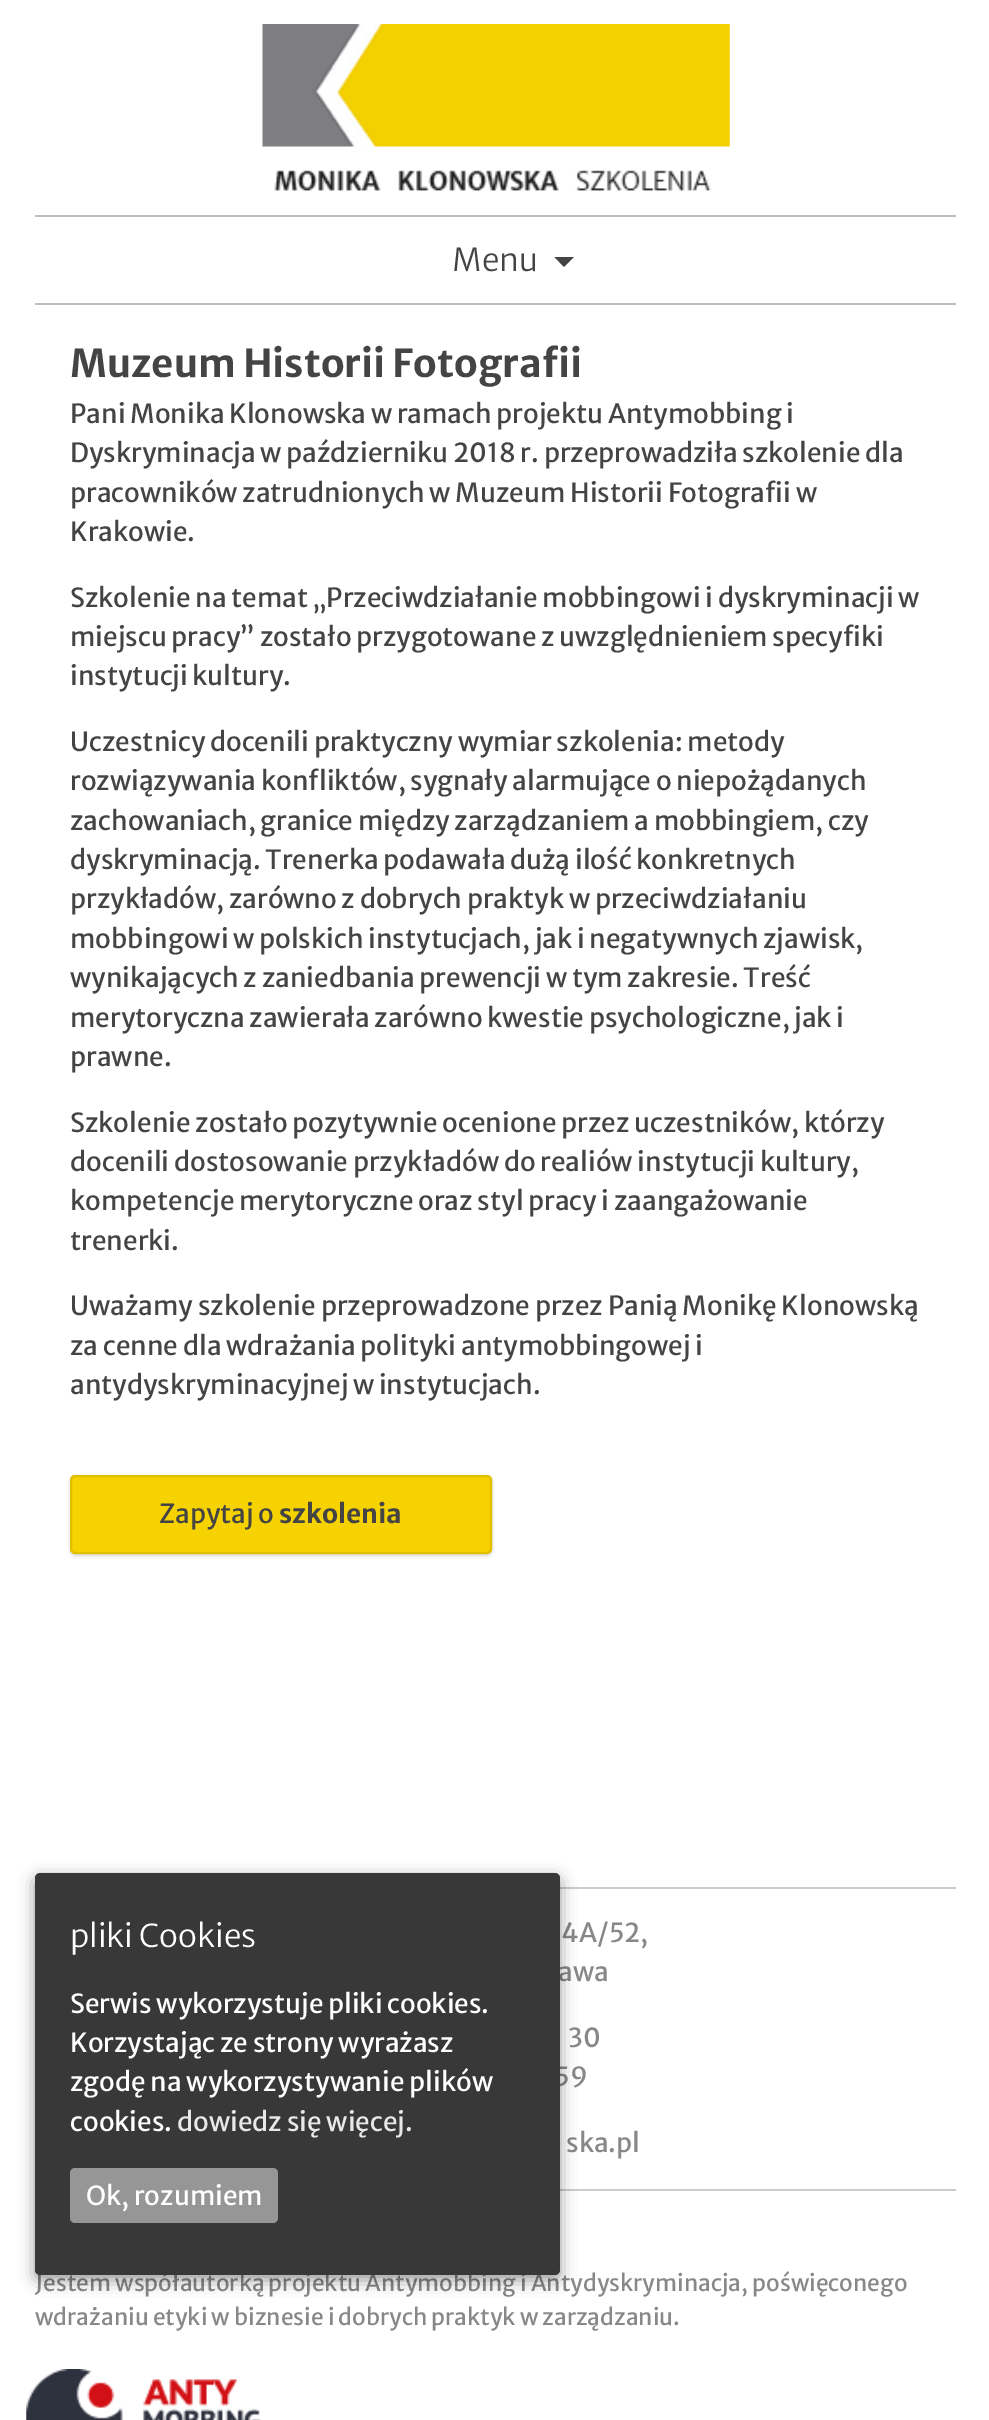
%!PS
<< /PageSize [989 2420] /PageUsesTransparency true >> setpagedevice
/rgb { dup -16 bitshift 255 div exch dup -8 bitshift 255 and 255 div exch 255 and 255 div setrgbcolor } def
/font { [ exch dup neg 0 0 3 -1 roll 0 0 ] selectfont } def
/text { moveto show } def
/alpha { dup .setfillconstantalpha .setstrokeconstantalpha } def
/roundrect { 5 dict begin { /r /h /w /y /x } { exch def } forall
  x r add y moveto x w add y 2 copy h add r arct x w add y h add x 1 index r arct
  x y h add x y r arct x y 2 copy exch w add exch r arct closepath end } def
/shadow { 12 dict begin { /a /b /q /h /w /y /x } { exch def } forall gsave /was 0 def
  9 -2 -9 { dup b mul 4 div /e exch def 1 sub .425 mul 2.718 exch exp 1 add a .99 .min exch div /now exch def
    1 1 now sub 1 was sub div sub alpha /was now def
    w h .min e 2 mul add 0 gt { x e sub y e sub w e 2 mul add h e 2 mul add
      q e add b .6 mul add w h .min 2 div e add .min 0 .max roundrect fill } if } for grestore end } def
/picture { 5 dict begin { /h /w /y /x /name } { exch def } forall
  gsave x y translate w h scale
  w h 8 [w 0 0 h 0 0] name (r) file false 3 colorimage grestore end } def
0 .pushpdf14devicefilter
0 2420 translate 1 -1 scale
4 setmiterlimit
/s1 { /MerriweatherSans-Light 31.5 font 16#444444 rgb } def
/s2 { /MerriweatherSans-Bold 38.5 font 16#444444 rgb } def
/s3 { /MerriweatherSans-Regular 26.25 font 16#444444 rgb } def
/s4 { /MerriweatherSans-Bold 26.25 font 16#444444 rgb } def
/s5 { /MerriweatherSans-Regular 26.25 font 16#888888 rgb } def
/s6 { /MerriweatherSans-Regular 22.75 font 16#888888 rgb } def
/s7 { /MerriweatherSans-Light 31.5 font 16#FFFFFF rgb } def
/s8 { /MerriweatherSans-Regular 26.25 font 16#FFFFFF rgb } def
/s9 { /MerriweatherSans-Regular 26.25 font 16#E8E8E8 rgb } def
16#FFFFFF rgb
0 0 989 2420 rectfill
(pic1.raw) 262 24 468 167 picture
16#BEBEC0 rgb
35 215 921 2 rectfill
35 303 921 2 rectfill
s1
(Menu) 452 271 text
554.5 257 moveto 564 267 lineto 574 257 lineto closepath fill
s2
(Muzeum Historii Fotografii) 70 377 text
s3
(Pani Monika Klonowska w ramach projektu Antymobbing i) 70 423 text
(Dyskryminacja w październiku 2018 r. przeprowadziła szkolenie dla) 70 462 text
(pracowników zatrudnionych w Muzeum Historii Fotografii w) 70 502 text
(Krakowie.) 70 541 text
(Szkolenie na temat „Przeciwdziałanie mobbingowi i dyskryminacji w) 70 607 text
(miejscu pracy” zostało przygotowane z uwzględnieniem specyfiki) 70 646 text
(instytucji kultury.) 70 685 text
(Uczestnicy docenili praktyczny wymiar szkolenia: metody) 70 751 text
(rozwiązywania konfliktów, sygnały alarmujące o niepożądanych) 70 790 text
(zachowaniach, granice między zarządzaniem a mobbingiem, czy) 70 830 text
(dyskryminacją. Trenerka podawała dużą ilość konkretnych) 70 869 text
(przykładów, zarówno z dobrych praktyk w przeciwdziałaniu) 70 908 text
(mobbingowi w polskich instytucjach, jak i negatywnych zjawisk,) 70 948 text
(wynikających z zaniedbania prewencji w tym zakresie. Treść) 70 987 text
(merytoryczna zawierała zarówno kwestie psychologiczne, jak i) 70 1027 text
(prawne.) 70 1066 text
(Szkolenie zostało pozytywnie ocenione przez uczestników, którzy) 70 1132 text
(docenili dostosowanie przykładów do realiów instytucji kultury,) 70 1171 text
(kompetencje merytoryczne oraz styl pracy i zaangażowanie) 70 1210 text
(trenerki.) 70 1250 text
(Uważamy szkolenie przeprowadzone przez Panią Monikę Klonowską) 70 1315 text
(za cenne dla wdrażania polityki antymobbingowej i) 70 1355 text
(antydyskryminacyjnej w instytucjach.) 70 1394 text
16#000000 rgb
70 1477 422 79 5 2 0.15 shadow
16#F5D200 rgb
71 1476 420 77 4 roundrect gsave fill grestore
16#DFBF00 rgb
2 setlinewidth
stroke
s3
(Zapytaj o) 159 1523 text
s4
(szkolenia) 279 1523 text
16#CCCCCC rgb
560 1887 396 2 rectfill
560 2189 396 2 rectfill
s5
(4A/52,) 561 1942 text
(awa) 558 1981 text
(30) 568 2047 text
(59) 554 2086 text
(ska.pl) 566 2152 text
s6
(Jestem współautorką projektu Antymobbing i Antydyskryminacja, poświęconego) 35 2291 text
(wdrażaniu etyki w biznesie i dobrych praktyk w zarządzaniu.) 35 2325 text
(pic2.raw) 26 2369 235 51 picture
16#000000 rgb
35 1878 525 402 5 8 0.4 shadow
16#383838 rgb
35 1873 525 402 5 roundrect fill
s7
(pliki Cookies) 70 1947 text
s8
(Serwis wykorzystuje pliki cookies.) 70 2013 text
(Korzystając ze strony wyrażasz) 70 2052 text
(zgodę na wykorzystywanie plików) 70 2091 text
(cookies.) 70 2131 text
s9
(dowiedz się więcej.) 177 2131 text
16#969696 rgb
70 2168 208 55 5 roundrect fill
s8
(Ok, rozumiem) 86 2205 text
.poppdf14devicefilter showpage
